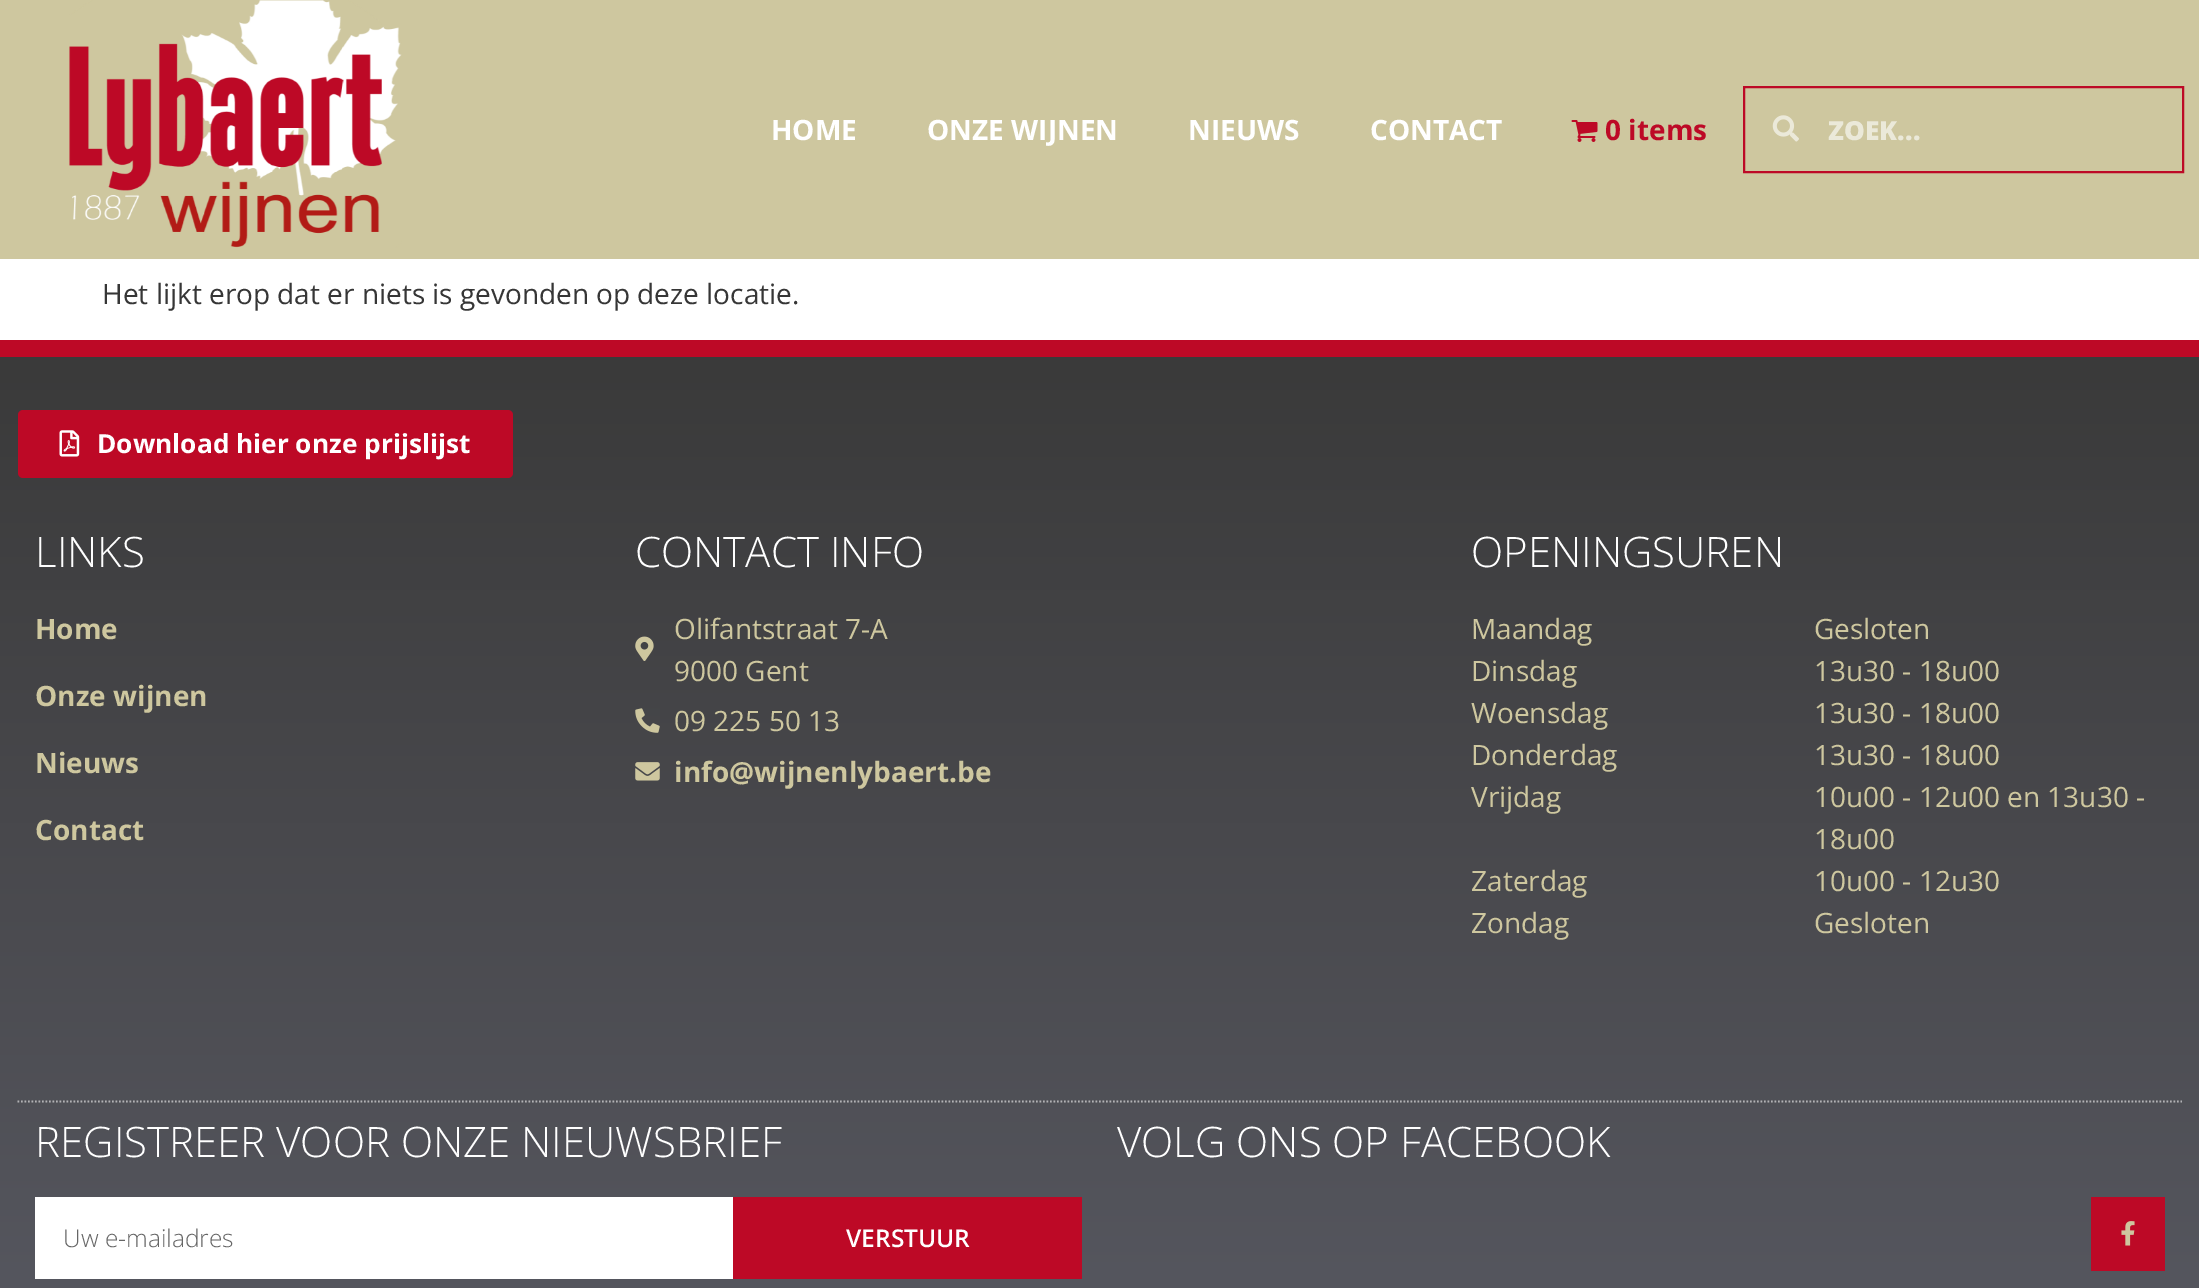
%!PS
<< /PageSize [2199 1288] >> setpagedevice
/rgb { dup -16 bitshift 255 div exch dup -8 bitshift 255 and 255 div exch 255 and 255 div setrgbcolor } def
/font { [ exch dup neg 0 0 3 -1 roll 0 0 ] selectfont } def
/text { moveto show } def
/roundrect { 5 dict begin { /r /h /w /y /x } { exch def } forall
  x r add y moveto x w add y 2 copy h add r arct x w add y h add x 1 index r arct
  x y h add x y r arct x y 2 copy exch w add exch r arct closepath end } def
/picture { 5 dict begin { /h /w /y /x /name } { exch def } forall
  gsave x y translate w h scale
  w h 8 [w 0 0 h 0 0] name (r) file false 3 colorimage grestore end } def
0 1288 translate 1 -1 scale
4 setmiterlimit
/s1 { /OpenSans-Bold 28 font 16#FFFFFF rgb } def
/s2 { /OpenSans-Bold 28 font 16#BD0926 rgb } def
/s3 { /OpenSans-ExtraBold 26.25 font 16#EBE9D9 rgb } def
/s4 { /OpenSans-Regular 28 font 16#363636 rgb } def
/s5 { /OpenSans-Bold 26.25 font 16#FFFFFF rgb } def
/s6 { /OpenSans-Light 42 font 16#FFFFFF rgb } def
/s7 { /OpenSans-Bold 28 font 16#CEC79F rgb } def
/s8 { /OpenSans-Regular 28 font 16#CEC79F rgb } def
/s9 { /OpenSans-Light 24.5 font 16#666666 rgb } def
/s10 { /OpenSans-SemiBold 24.5 font 16#FFFFFF rgb } def
16#FFFFFF rgb
0 0 2199 1288 rectfill
16#CEC79F rgb
0 0 2199 259 rectfill
(pic1.raw) 69 0 333 248 picture
s1
(HOME) 771 140 text
(ONZE WIJNEN) 927 140 text
(NIEUWS) 1188 140 text
(CONTACT) 1370 140 text
(pic2.raw) 1571 120 27 22 picture
s2
(0 items) 1605 140 text
2 setlinewidth
1744 87 439 85 rectstroke
(pic3.raw) 1772 115 27 27 picture
s3
(ZOEK...) 1828 140 text
s4
(Het lijkt erop dat er niets is gevonden op deze locatie.) 102 304 text
gsave 0 357 moveto 2199 357 lineto 2199 1288 lineto 0 1288 lineto closepath clip newpath
<< /ShadingType 2 /ColorSpace /DeviceRGB /Coords [1100 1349 1100 357] /Extend [true true] /Function << /FunctionType 2 /Domain [0 1] /C0 [0.341 0.345 0.376] /C1 [0.227 0.227 0.227] /N 1 >> >> shfill grestore
16#BD0926 rgb
0 340 2199 17 rectfill
18 410 495 68 5 roundrect fill
(pic4.raw) 59 430 21 27 picture
s5
(Download hier onze prijslijst) 97 453 text
s6
(LINKS) 35 567 text
s7
(Home) 35 639 text
(Onze wijnen) 35 706 text
(Nieuws) 35 773 text
(Contact) 35 840 text
s6
(CONTACT INFO) 635 567 text
(pic5.raw) 635 636 19 25 picture
s8
(Olifantstraat 7-A) 674 639 text
(9000 Gent) 674 681 text
(pic6.raw) 635 708 25 25 picture
(09 225 50 13) 674 731 text
(pic7.raw) 635 762 25 19 picture
s7
(info@wijnenlybaert.be) 674 782 text
s6
(OPENINGSUREN) 1471 567 text
s8
(Maandag) 1471 639 text
(Gesloten) 1814 639 text
(Dinsdag) 1471 681 text
(13u30 - 18u00) 1814 681 text
(Woensdag) 1471 723 text
(13u30 - 18u00) 1814 723 text
(Donderdag) 1471 765 text
(13u30 - 18u00) 1814 765 text
(Vrijdag) 1471 807 text
(10u00 - 12u00 en 13u30 -) 1814 807 text
(18u00) 1814 849 text
(Zaterdag) 1471 891 text
(10u00 - 12u30) 1814 891 text
(Zondag) 1471 933 text
(Gesloten) 1814 933 text
16#B2B2B5 rgb
1.8 setlinewidth
[1.75 1.75] 0 setdash
17.5 1101.5 moveto 2182 1101.5 lineto stroke
s6
(REGISTREER VOOR ONZE NIEUWSBRIEF) 35 1157 text
35 1197 698 82 rectfill
s9
(Uw e-mailadres) 63 1247 text
16#BD0926 rgb
733 1197 349 82 rectfill
s10
(VERSTUUR) 846 1247 text
s6
(VOLG ONS OP FACEBOOK) 1117 1157 text
16#BD0926 rgb
2091 1197 74 74 rectfill
(pic8.raw) 2121 1221 14 25 picture
showpage
